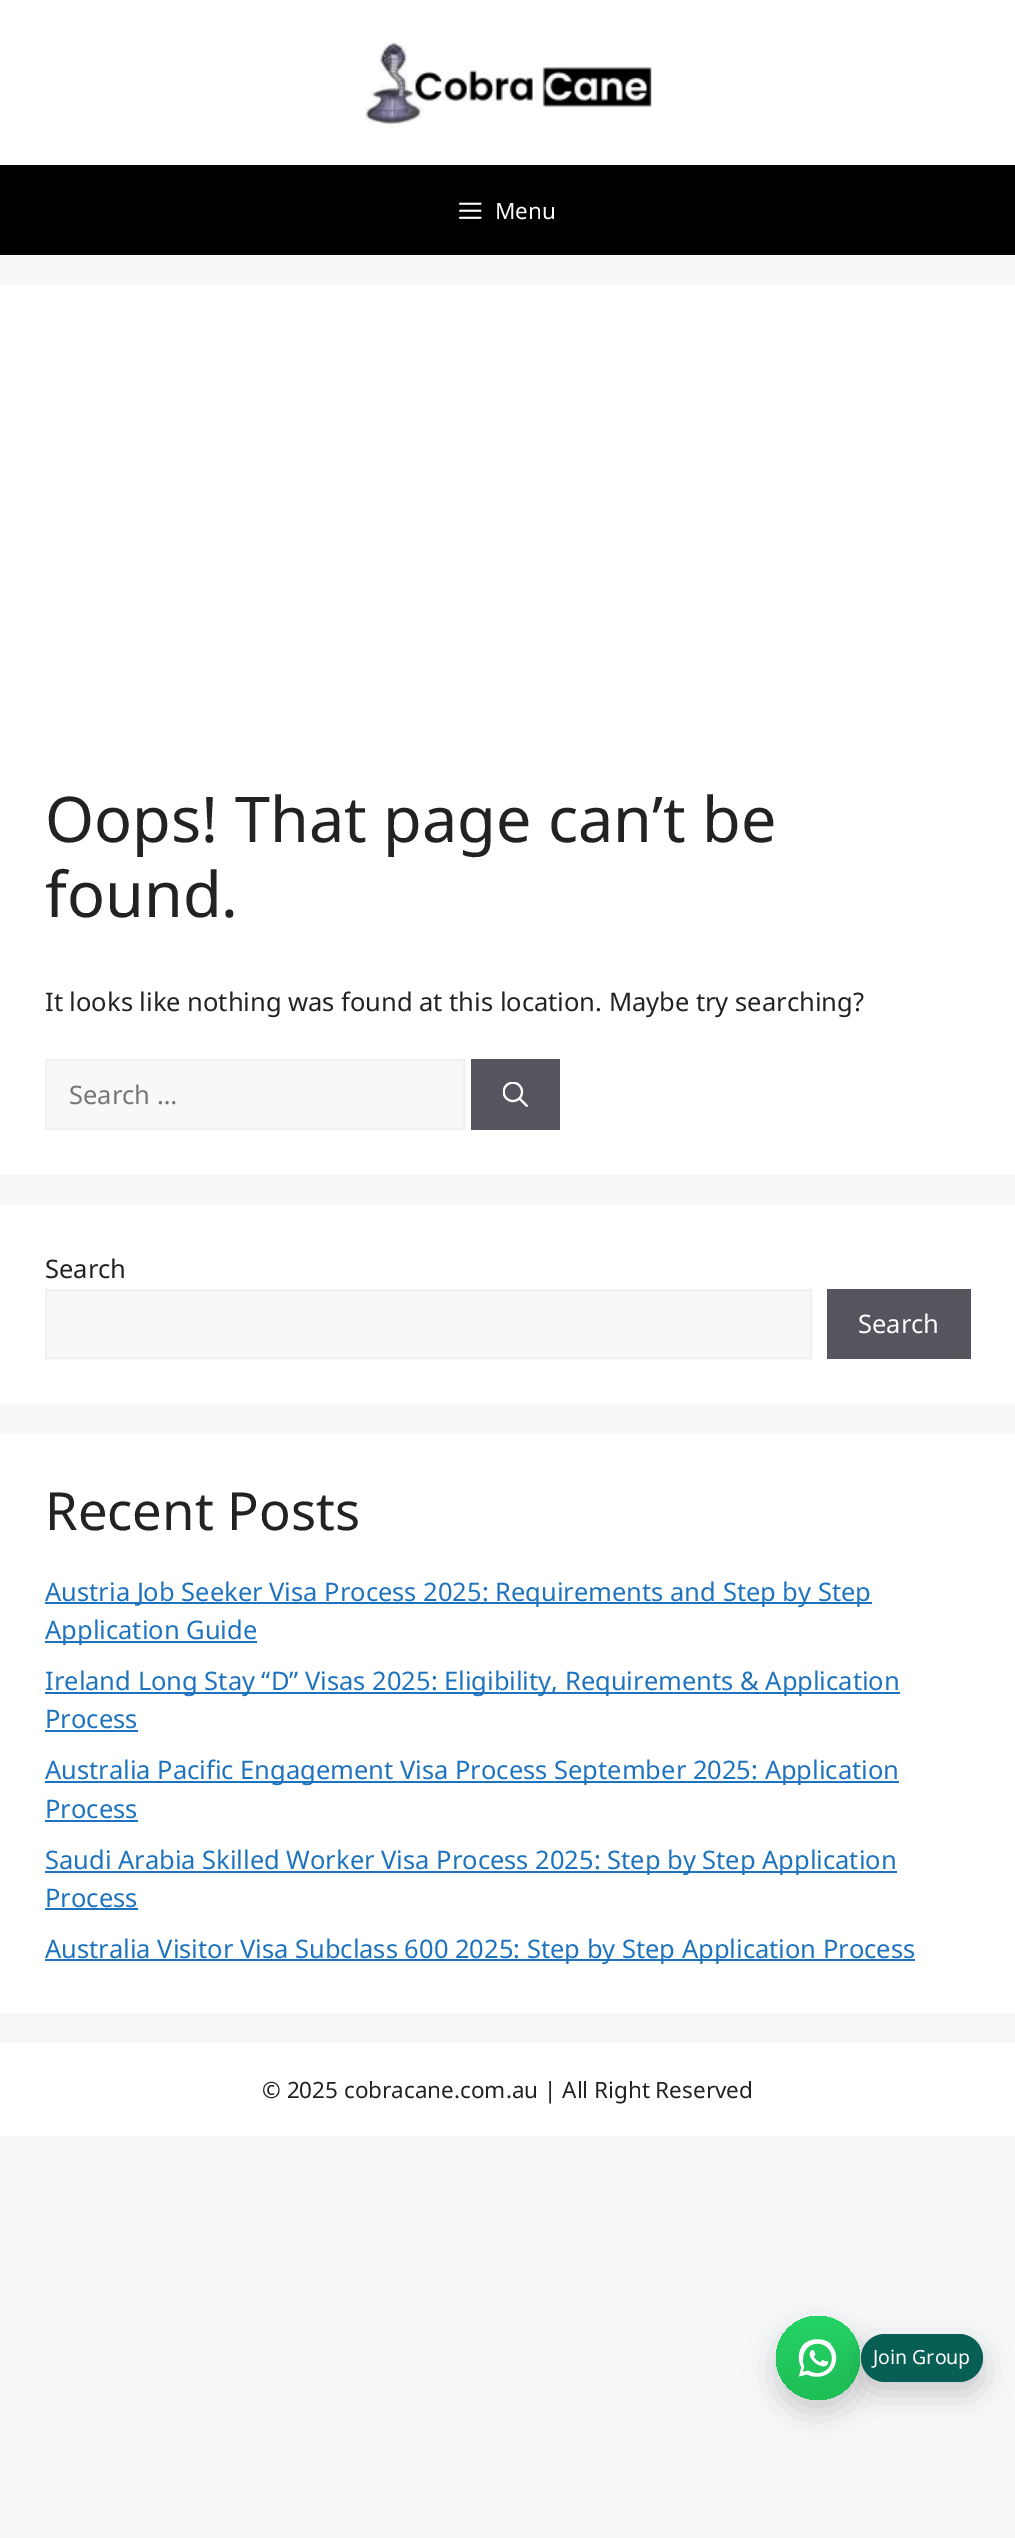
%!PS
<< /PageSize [1015 2538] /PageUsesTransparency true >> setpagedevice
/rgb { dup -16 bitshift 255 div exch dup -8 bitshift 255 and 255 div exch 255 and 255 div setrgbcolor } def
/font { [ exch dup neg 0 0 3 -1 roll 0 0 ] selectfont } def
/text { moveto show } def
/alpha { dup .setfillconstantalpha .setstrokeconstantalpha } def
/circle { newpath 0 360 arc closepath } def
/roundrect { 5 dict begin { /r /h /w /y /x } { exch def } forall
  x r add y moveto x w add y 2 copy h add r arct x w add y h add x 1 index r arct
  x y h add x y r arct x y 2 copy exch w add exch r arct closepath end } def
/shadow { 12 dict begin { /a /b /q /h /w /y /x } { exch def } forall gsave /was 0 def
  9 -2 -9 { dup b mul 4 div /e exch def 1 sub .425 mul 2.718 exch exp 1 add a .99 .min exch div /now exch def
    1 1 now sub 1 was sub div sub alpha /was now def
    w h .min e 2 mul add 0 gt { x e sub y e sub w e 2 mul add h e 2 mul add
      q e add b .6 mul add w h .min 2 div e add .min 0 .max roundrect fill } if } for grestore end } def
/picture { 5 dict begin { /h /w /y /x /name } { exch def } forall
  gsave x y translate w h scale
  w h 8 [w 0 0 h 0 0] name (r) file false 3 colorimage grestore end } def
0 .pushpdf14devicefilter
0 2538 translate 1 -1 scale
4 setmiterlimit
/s1 { /NotoSans-Regular 22.5 font 16#FFFFFF rgb } def
/s2 { /NotoSans-Regular 63 font 16#222222 rgb } def
/s3 { /NotoSans-Regular 25.5 font 16#222222 rgb } def
/s4 { /NotoSans-Regular 25.5 font 16#757575 rgb } def
/s5 { /NotoSans-Regular 25.5 font 16#FFFFFF rgb } def
/s6 { /NotoSans-Regular 52.5 font 16#222222 rgb } def
/s7 { /NotoSans-Regular 25.5 font 16#1E73BE rgb } def
/s8 { /NotoSans-Regular 22.5 font 16#222222 rgb } def
/s9 { /NotoSans-Regular 19.5 font 16#FFFFFF rgb } def
16#F7F8F9 rgb
0 0 1015 2538 rectfill
16#FFFFFF rgb
0 0 1015 165 rectfill
(pic1.raw) 364 42 288 84 picture
16#000000 rgb
0 165 1015 90 rectfill
(pic2.raw) 459 202 23 17 picture
s1
(Menu) 495 219 text
0 285 1015 890 rectfill
s2
(Oops! That page can’t be) 45 842 text
(found.) 45 917 text
s3
(It looks like nothing was found at this location. Maybe try searching?) 45 1011 text
16#F7F8F9 rgb
46 1060 moveto 464 1060 lineto 464 1129 lineto 46 1129 lineto closepath gsave fill grestore
16#F0F0F0 rgb
2 setlinewidth
stroke
s4
(Search …) 69 1104 text
16#55555E rgb
471 1059 89 71 rectfill
(pic3.raw) 503 1082 25 25 picture
16#FFFFFF rgb
0 1205 1015 199 rectfill
s3
(Search) 45 1278 text
16#F7F8F9 rgb
46 1290 moveto 811 1290 lineto 811 1358 lineto 46 1358 lineto closepath gsave fill grestore
16#F0F0F0 rgb
stroke
16#55555E rgb
827 1289 144 70 rectfill
s5
(Search) 858 1333 text
0 1434 1015 579 rectfill
s6
(Recent Posts) 45 1530 text
16#1E73BE rgb
45 1602 827 2 rectfill
s7
(Austria Job Seeker Visa Process 2025: Requirements and Step by Step) 45 1601 text
45 1641 212 2 rectfill
(Application Guide) 45 1639 text
45 1692 855 2 rectfill
(Ireland Long Stay “D” Visas 2025: Eligibility, Requirements & Application) 45 1690 text
(Process) 45 1728 text
45 1730 93 2 rectfill
45 1781 854 2 rectfill
(Australia Pacific Engagement Visa Process September 2025: Application) 45 1779 text
(Process) 45 1818 text
45 1820 93 2 rectfill
45 1871 852 2 rectfill
(Saudi Arabia Skilled Worker Visa Process 2025: Step by Step Application) 45 1869 text
(Process) 45 1907 text
45 1908 93 2 rectfill
45 1959 870 2 rectfill
(Australia Visitor Visa Subclass 600 2025: Step by Step Application Process) 45 1958 text
16#FFFFFF rgb
0 2043 1015 93 rectfill
s8
(© 2025 cobracane.com.au | All Right Reserved) 262 2098 text
16#020202 rgb
776 2328 84 84 42 15 0.18 shadow
gsave 818 2358 42 circle clip newpath
<< /ShadingType 2 /ColorSpace /DeviceRGB /Coords [818 2316 818 2400] /Extend [true true] /Function << /FunctionType 2 /Domain [0 1] /C0 [0.145 0.827 0.4] /C1 [0.118 0.745 0.333] /N 1 >> >> shfill grestore
(pic4.raw) 798 2339 39 38 picture
861 2346 122 48 24 15 0.18 shadow
16#075E54 rgb
861 2334 122 48 24 roundrect fill
s9
(Join Group) 873 2364 text
.poppdf14devicefilter showpage
